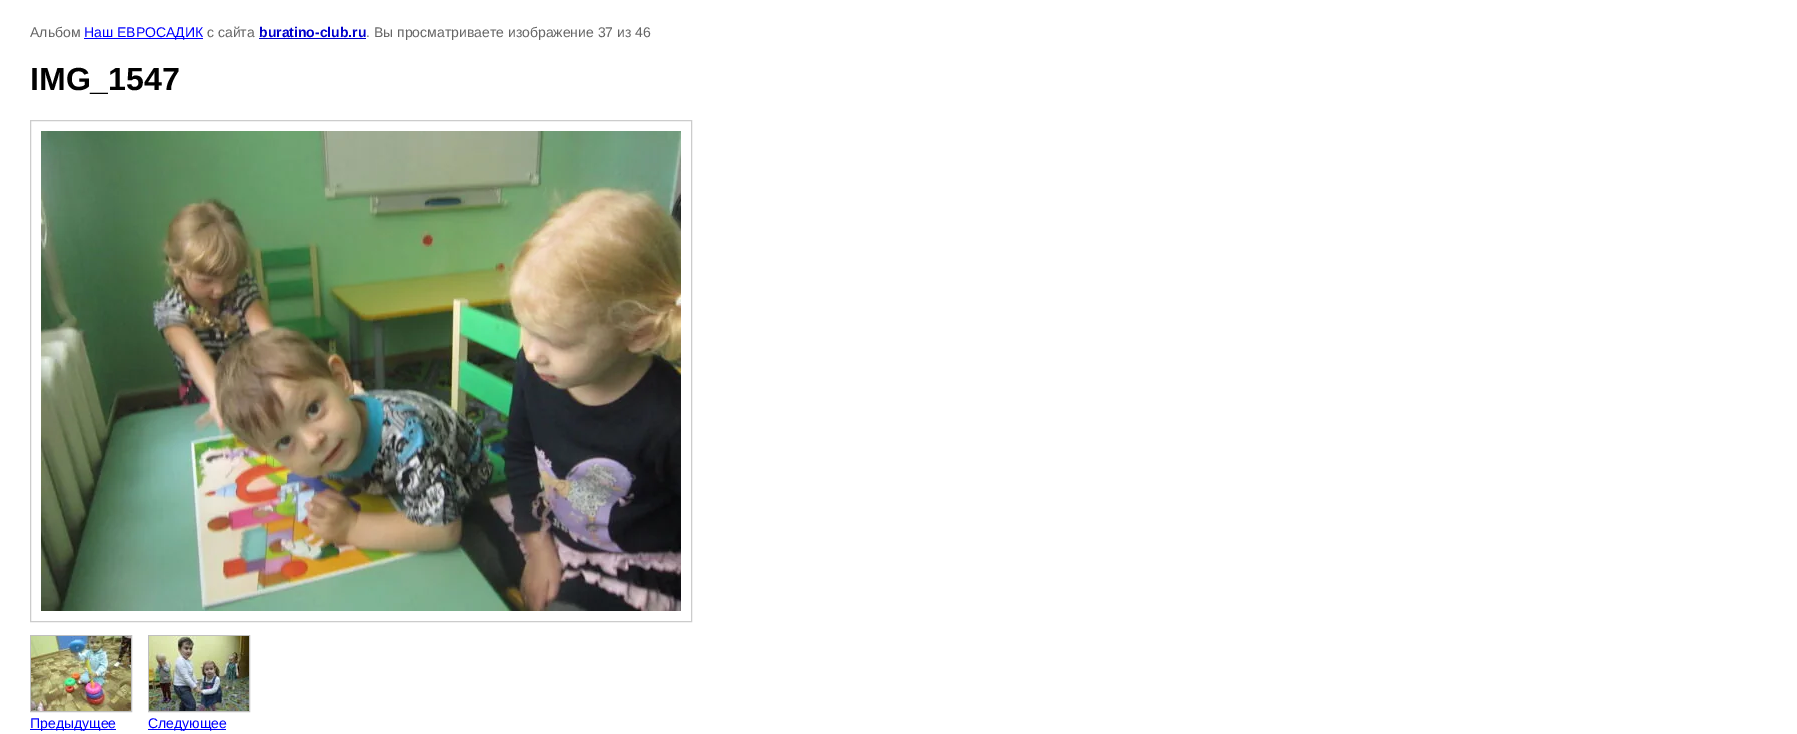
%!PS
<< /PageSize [1797 734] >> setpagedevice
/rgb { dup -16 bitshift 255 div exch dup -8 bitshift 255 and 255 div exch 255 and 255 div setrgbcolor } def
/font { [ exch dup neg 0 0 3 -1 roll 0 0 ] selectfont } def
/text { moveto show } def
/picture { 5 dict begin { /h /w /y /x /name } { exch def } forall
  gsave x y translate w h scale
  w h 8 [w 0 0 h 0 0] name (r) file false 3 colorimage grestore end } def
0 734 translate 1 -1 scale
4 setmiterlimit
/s1 { /LiberationSans-Regular 14 font 16#666666 rgb } def
/s2 { /LiberationSans-Regular 14 font 16#0000FF rgb } def
/s3 { /LiberationSans-Bold 14 font 16#0000CC rgb } def
/s4 { /LiberationSans-Bold 32 font 16#000000 rgb } def
16#FFFFFF rgb
0 0 1797 734 rectfill
s1
(Альбом) 30 37 text
16#0000FF rgb
84 38 119 1 rectfill
(Наш ЕВРОСАДИК) 84 37 text
s1
(с сайта) 207 37 text
s3
(buratino-club.ru) 259 37 text
259 38 107 1 rectfill
s1
(. Вы просматриваете изображение 37 из 46) 366 37 text
s4
(IMG_1547) 30 90 text
16#CCCCCC rgb
30.5 120.5 661 501 rectstroke
(pic1.raw) 41 131 640 480 picture
16#C0C0C0 rgb
30.5 635.5 101 76 rectstroke
(pic2.raw) 31 636 100 75 picture
16#0000FF rgb
30 729 86 1 rectfill
s2
(Предыдущее) 30 728 text
16#C0C0C0 rgb
148.5 635.5 101 76 rectstroke
(pic3.raw) 149 636 100 75 picture
16#0000FF rgb
148 729 78 1 rectfill
(Следующее) 148 728 text
showpage
